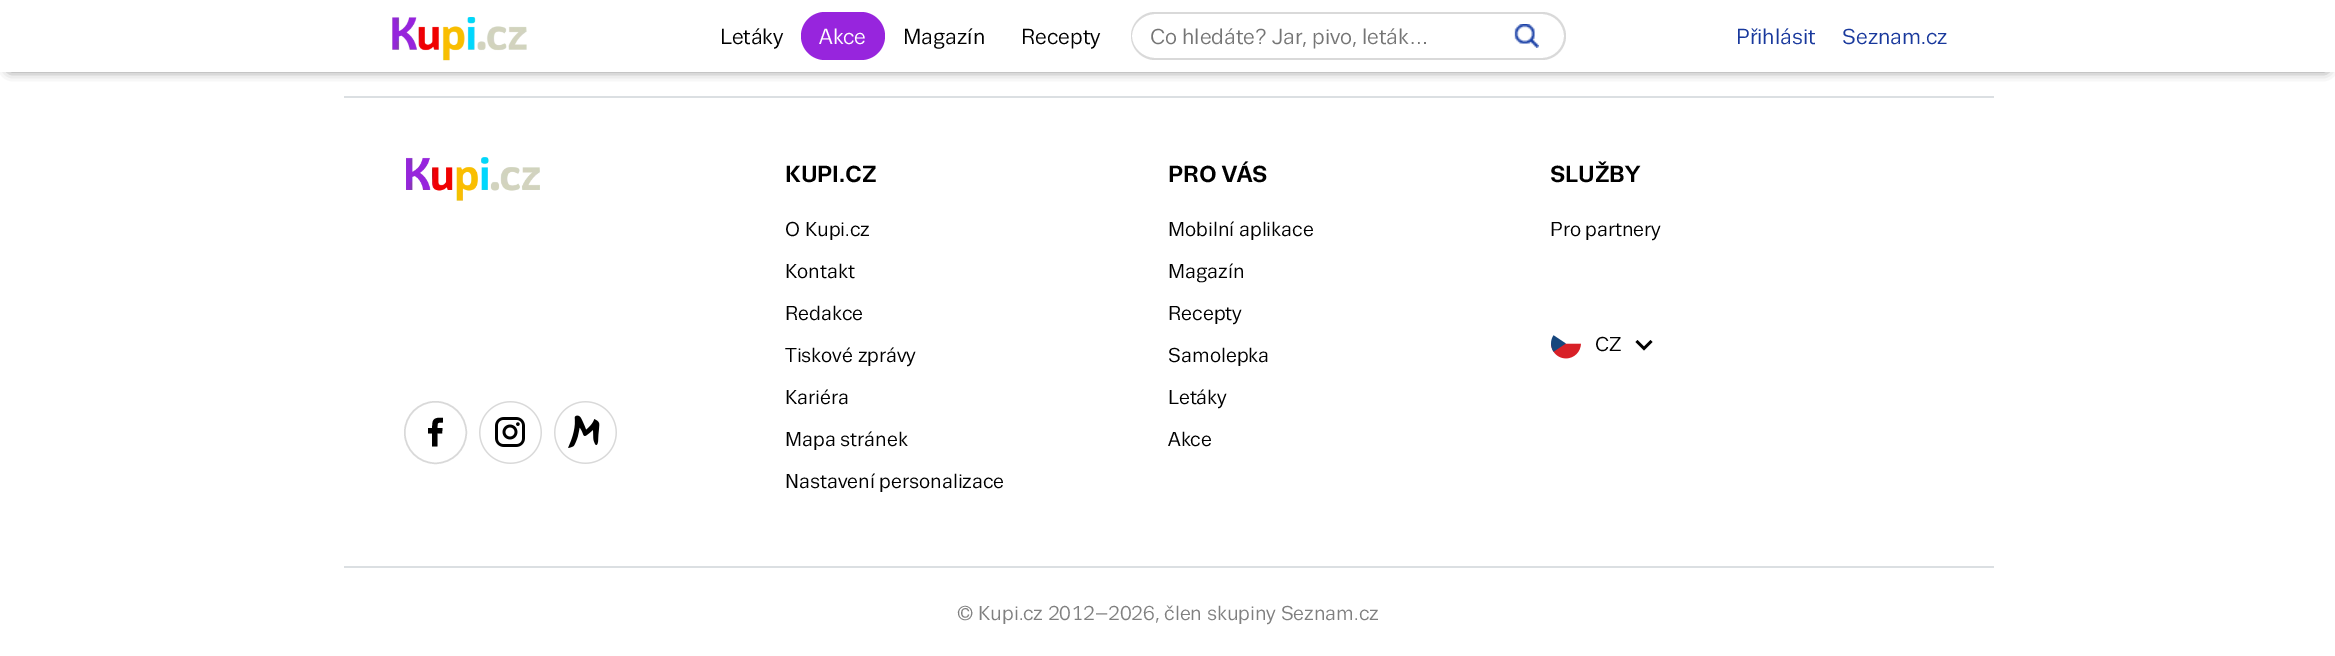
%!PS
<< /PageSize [2335 656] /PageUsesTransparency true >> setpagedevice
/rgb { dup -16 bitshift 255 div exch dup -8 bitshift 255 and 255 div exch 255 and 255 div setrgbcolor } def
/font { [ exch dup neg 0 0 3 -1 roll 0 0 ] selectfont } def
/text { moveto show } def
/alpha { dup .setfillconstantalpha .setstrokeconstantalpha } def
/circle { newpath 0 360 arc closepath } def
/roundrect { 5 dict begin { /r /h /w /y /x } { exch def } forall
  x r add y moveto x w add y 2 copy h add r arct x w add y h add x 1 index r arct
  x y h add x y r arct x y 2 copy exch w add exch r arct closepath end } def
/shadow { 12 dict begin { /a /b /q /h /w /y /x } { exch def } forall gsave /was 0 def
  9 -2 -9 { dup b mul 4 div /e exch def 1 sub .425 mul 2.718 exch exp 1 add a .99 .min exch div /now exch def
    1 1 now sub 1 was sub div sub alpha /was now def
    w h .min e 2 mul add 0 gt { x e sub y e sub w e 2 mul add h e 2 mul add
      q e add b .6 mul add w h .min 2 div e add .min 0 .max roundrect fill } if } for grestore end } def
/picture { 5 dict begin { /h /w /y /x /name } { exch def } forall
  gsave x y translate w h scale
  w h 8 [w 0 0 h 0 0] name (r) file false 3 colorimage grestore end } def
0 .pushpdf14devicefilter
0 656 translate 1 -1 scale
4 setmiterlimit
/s1 { /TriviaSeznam-Regular 21 font 16#000000 rgb } def
/s2 { /TriviaSeznam-Regular 21 font 16#FFFFFF rgb } def
/s3 { /TriviaSeznam-Regular 21 font 16#757575 rgb } def
/s4 { /TriviaSeznam-Regular 21 font 16#18389C rgb } def
/s5 { /TriviaSeznam-Bold 22.5 font 16#000000 rgb } def
/s6 { /TriviaSeznam-Regular 19.5 font 16#000000 rgb } def
/s7 { /TriviaSeznam-Regular 19.5 font 16#808080 rgb } def
16#FFFFFF rgb
0 0 2335 656 rectfill
16#000000 rgb
11 63 2314 5 0 6 1 shadow
16#FFFFFF rgb
0 49 2335 23 rectfill
(pic1.raw) 392 17 135 44 picture
s1
(Letáky) 720 44 text
16#9725DD rgb
801 12 84 48 24 roundrect fill
s2
(Akce) 819 44 text
s1
(Magazín) 903 44 text
(Recepty) 1021 44 text
16#D9D9D9 rgb
1155 12 moveto 1494 12 lineto 1494 60 lineto 1155 60 lineto 1142 60 1131 49 1131 36 curveto 1131 23 1142 12 1155 12 curveto closepath 1155 14 moveto 1494 14 lineto 1494 58 lineto 1155 58 lineto 1143 58 1132 48 1132 36 curveto 1132 24 1143 14 1155 14 curveto closepath eofill
s3
(Co hledáte? Jar, pivo, leták…) 1150 44 text
16#D9D9D9 rgb
1494 12 moveto 1542 12 lineto 1555 12 1566 23 1566 36 curveto 1566 49 1555 60 1542 60 curveto 1494 60 lineto closepath 1494 14 moveto 1542 14 lineto 1554 14 1564 24 1564 36 curveto 1564 48 1554 58 1542 58 curveto 1494 58 lineto closepath eofill
(pic2.raw) 1514 24 25 24 picture
s4
(Přihlásit) 1736 44 text
(Seznam.cz) 1842 44 text
16#DBDFE2 rgb
344 96 1650 2 rectfill
(pic3.raw) 406 157 134 44 picture
16#D9D9D9 rgb
1.5 setlinewidth
435.5 432.5 30.75 circle stroke
16#000000 rgb
432 446.5 moveto 437.5 446.5 lineto 437.5 433.5 lineto 442 433.5 lineto 442.5 428 lineto 437.5 428 lineto 437.5 422.5 437 422.5 443 422.5 curveto 443 418 lineto 438.5 417.5 433 417.5 432.5 423 curveto 432 428 lineto 428 428 lineto 428 433.5 lineto 432 433.5 lineto closepath fill
(pic4.raw) 479 401 63 63 picture
(pic5.raw) 554 401 63 63 picture
s5
(KUPI.CZ) 785 182 text
s6
(O Kupi.cz) 785 236 text
(Kontakt) 785 278 text
(Redakce) 785 320 text
(Tiskové zprávy) 785 362 text
(Kariéra) 785 404 text
(Mapa stránek) 785 446 text
(Nastavení personalizace) 785 488 text
s5
(PRO VÁS) 1168 182 text
s6
(Mobilní aplikace) 1168 236 text
(Magazín) 1168 278 text
(Recepty) 1168 320 text
(Samolepka) 1168 362 text
(Letáky) 1168 404 text
(Akce) 1168 446 text
s5
(SLUŽBY) 1550 182 text
s6
(Pro partnery) 1550 236 text
(pic6.raw) 1551 335 30 24 picture
(CZ) 1595 351 text
1637.5 340 moveto 1644 346.5 lineto 1650.5 340 lineto 1652.5 342 lineto 1644 350.5 lineto 1635.5 342 lineto closepath fill
16#DBDFE2 rgb
344 566 1650 2 rectfill
s7
(© Kupi.cz 2012–2026, člen skupiny Seznam.cz) 957 620 text
.poppdf14devicefilter showpage
